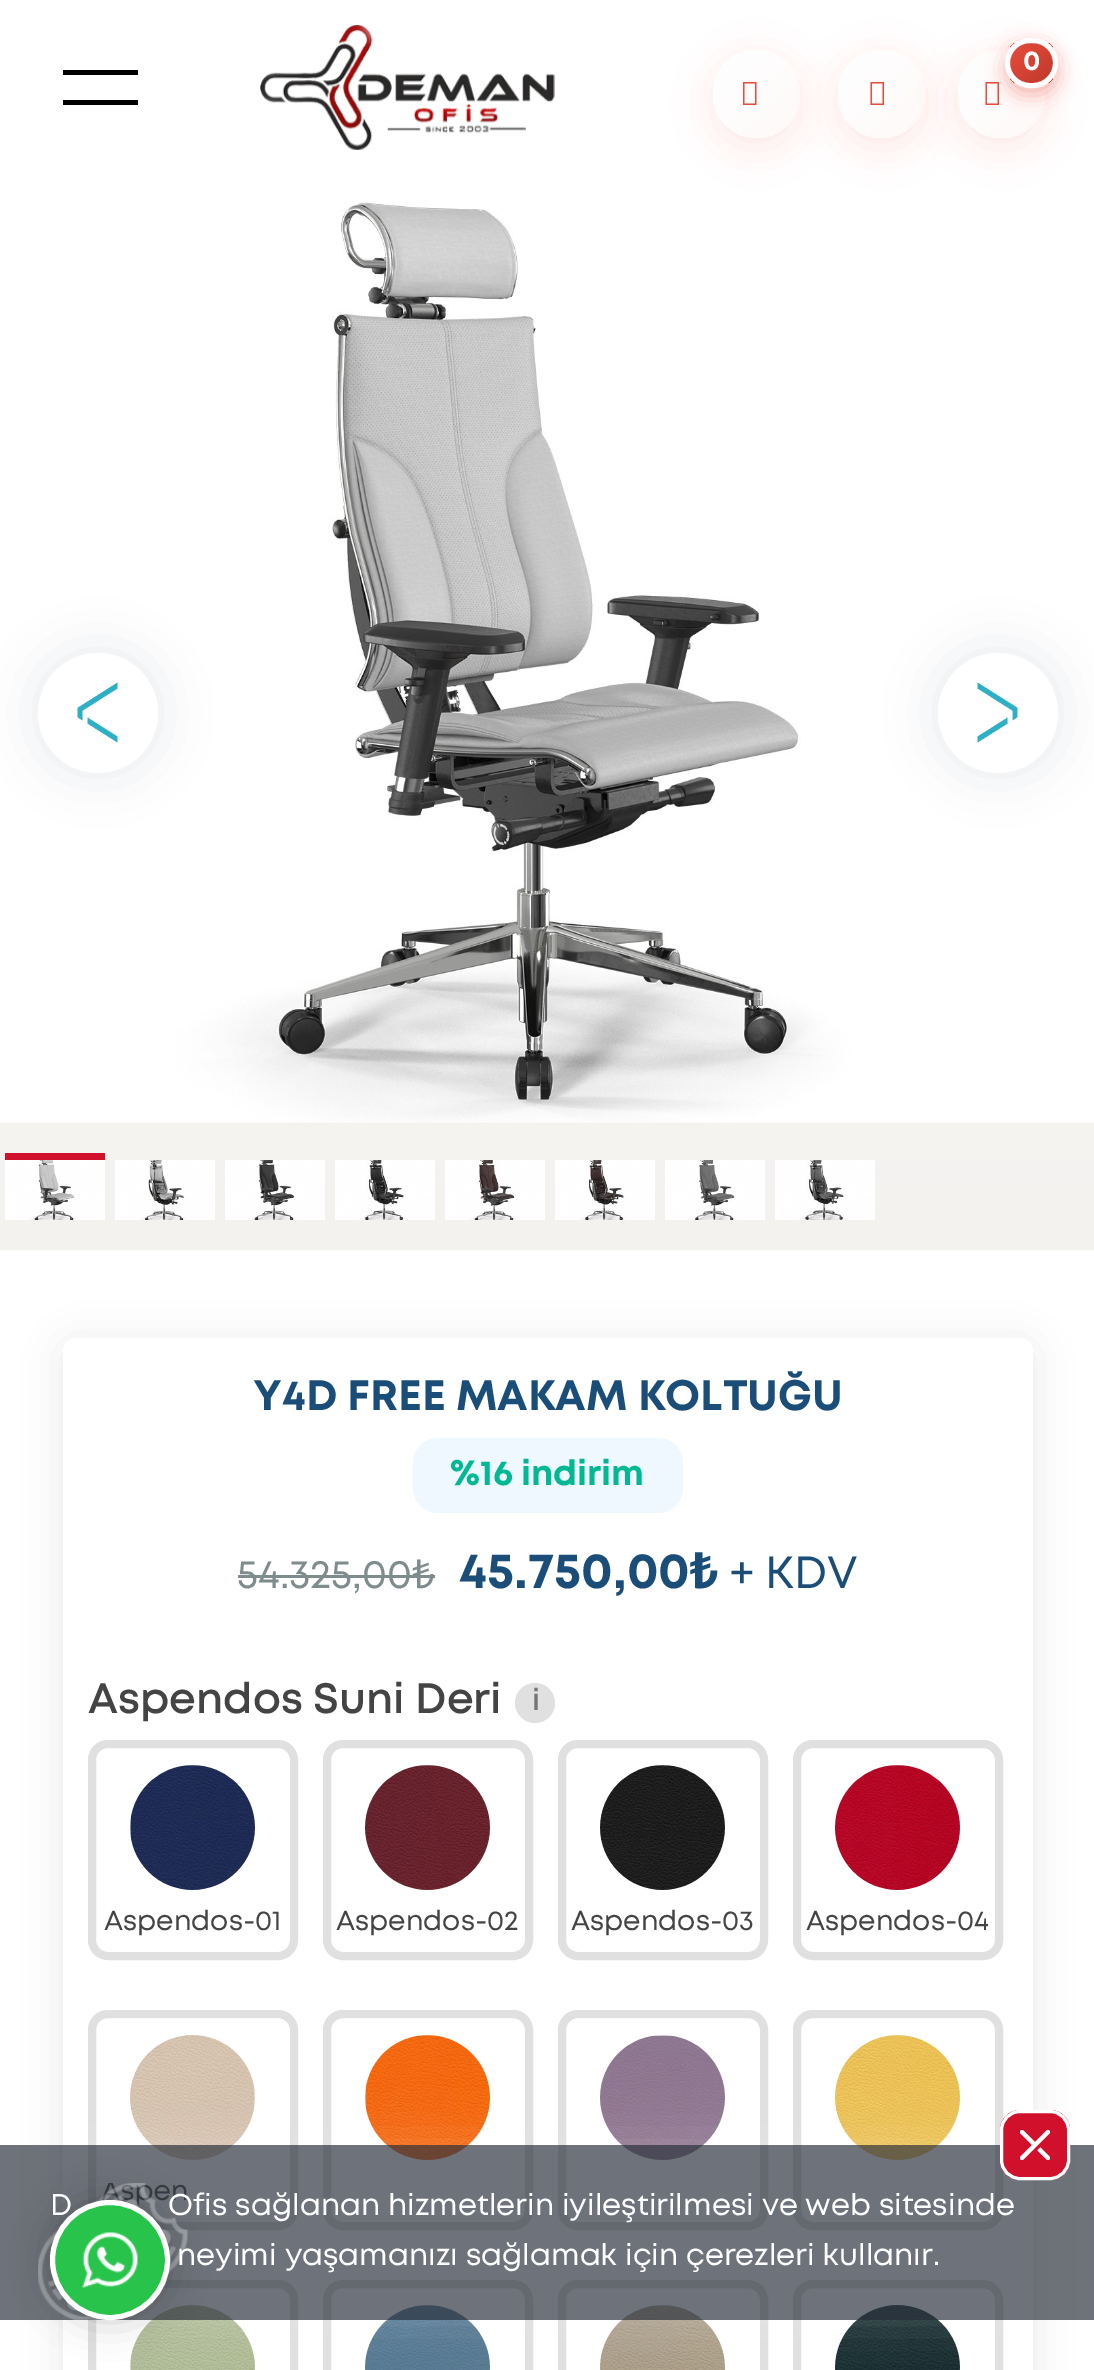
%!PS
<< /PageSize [1094 2370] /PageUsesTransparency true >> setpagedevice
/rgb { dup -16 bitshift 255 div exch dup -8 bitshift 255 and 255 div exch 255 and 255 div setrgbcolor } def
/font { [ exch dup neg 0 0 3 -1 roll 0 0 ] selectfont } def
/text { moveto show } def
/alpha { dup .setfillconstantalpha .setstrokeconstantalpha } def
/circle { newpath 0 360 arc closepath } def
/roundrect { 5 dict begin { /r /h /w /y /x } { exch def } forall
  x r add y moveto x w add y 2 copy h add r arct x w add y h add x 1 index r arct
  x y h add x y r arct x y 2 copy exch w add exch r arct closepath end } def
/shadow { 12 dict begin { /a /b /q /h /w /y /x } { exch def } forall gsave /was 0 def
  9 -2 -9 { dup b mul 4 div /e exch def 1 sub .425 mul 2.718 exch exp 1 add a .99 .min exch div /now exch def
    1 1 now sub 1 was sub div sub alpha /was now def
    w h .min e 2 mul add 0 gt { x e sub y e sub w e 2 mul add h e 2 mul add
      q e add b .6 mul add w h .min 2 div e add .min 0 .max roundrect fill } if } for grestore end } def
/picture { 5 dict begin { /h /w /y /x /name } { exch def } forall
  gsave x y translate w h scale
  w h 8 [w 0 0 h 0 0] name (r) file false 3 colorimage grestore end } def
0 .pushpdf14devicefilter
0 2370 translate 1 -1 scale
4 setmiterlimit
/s1 { /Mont-Bold 27.5 font 16#FFFFFF rgb } def
/s2 { /Mont-Bold 42.5 font 16#1A4E78 rgb } def
/s3 { /Mont-Bold 35 font 16#00B894 rgb } def
/s4 { /Mont-Regular 40 font 16#7F8C8D rgb } def
/s5 { /NotoSans-Regular 40 font 16#7F8C8D rgb } def
/s6 { /Mont-Bold 50 font 16#1A4E78 rgb } def
/s7 { /NotoSans-Bold 50 font 16#1A4E78 rgb } def
/s8 { /Mont-Regular 45 font 16#1A4E78 rgb } def
/s9 { /Mont-SemiBold 42.5 font 16#444444 rgb } def
/s10 { /Mont-SemiBold 30 font 16#777777 rgb } def
/s11 { /Mont-Regular 27.5 font 16#444444 rgb } def
/s12 { /Mont-Regular 30 font 16#FFFFFF rgb } def
16#FFFFFF rgb
0 0 1094 2370 rectfill
(pic1.raw) 260 25 296 125 picture
gsave 0 342 moveto 1094 342 lineto 1094 1250 lineto 0 1250 lineto closepath clip newpath
<< /ShadingType 2 /ColorSpace /DeviceRGB /Coords [547 175 548 1250] /Extend [true true] /Function << /FunctionType 2 /Domain [0 1] /C0 [1 1 1] /C1 [0.957 0.949 0.937] /N 1 >> >> shfill grestore
(pic2.raw) 0 202 1094 921 picture
16#E74C3C rgb
713 60 87 88 43.5 19 0.12 shadow
gsave 713 50 87 88 43.5 roundrect clip newpath
<< /ShadingType 2 /ColorSpace /DeviceRGB /Coords [713 50 800 138] /Extend [true true] /Function << /FunctionType 2 /Domain [0 1] /C0 [1 1 1] /C1 [0.996 0.976 0.976] /N 1 >> >> shfill grestore
743 105 moveto 743 82 lineto 756.5 82 lineto 756.5 105 lineto closepath 744.5 103.5 moveto 755 103.5 lineto 755 83.5 lineto 744.5 83.5 lineto closepath fill
838 60 87 88 43.5 19 0.12 shadow
gsave 838 50 87 88 43.5 roundrect clip newpath
<< /ShadingType 2 /ColorSpace /DeviceRGB /Coords [838 50 925 138] /Extend [true true] /Function << /FunctionType 2 /Domain [0 1] /C0 [1 1 1] /C1 [0.996 0.976 0.976] /N 1 >> >> shfill grestore
870.5 105 moveto 870.5 82 lineto 884 82 lineto 884 105 lineto closepath 872 103.5 moveto 882.5 103.5 lineto 882.5 83.5 lineto 872 83.5 lineto closepath fill
958 60 87 88 43.5 19 0.12 shadow
gsave 958 50 87 88 43.5 roundrect clip newpath
<< /ShadingType 2 /ColorSpace /DeviceRGB /Coords [958 50 1045 138] /Extend [true true] /Function << /FunctionType 2 /Domain [0 1] /C0 [1 1 1] /C1 [0.996 0.976 0.976] /N 1 >> >> shfill grestore
985.5 105 moveto 985.5 82 lineto 999 82 lineto 999 105 lineto closepath 987 103.5 moveto 997.5 103.5 lineto 997.5 83.5 lineto 987 83.5 lineto closepath fill
1005 45 53 50 25 10 0.4 shadow
gsave
1005 38 53 50 25 roundrect clip newpath
gsave 1010 43 moveto 1053 43 lineto 1053 83 lineto 1010 83 lineto closepath clip newpath
<< /ShadingType 2 /ColorSpace /DeviceRGB /Coords [1011 42 1052 83] /Extend [true true] /Function << /FunctionType 2 /Domain [0 1] /C0 [0.906 0.298 0.235] /C1 [0.753 0.224 0.169] /N 1 >> >> shfill grestore
grestore
16#FFFFFF rgb
5 setlinewidth
1007.5 40.5 48 45 22.5 roundrect stroke
s1
(0) 1023 70 text
16#000000 rgb
63 70 75 5 rectfill
63 100 75 5 rectfill
16#10294B rgb
38 653 120 120 60 25 0.1 shadow
16#FFFFFF rgb
98 713 60 circle fill
(pic3.raw) 77 682 41 61 picture
16#10294B rgb
938 653 120 120 60 25 0.1 shadow
16#FFFFFF rgb
998 713 60 circle fill
(pic4.raw) 977 682 41 61 picture
16#D1112B rgb
5 1153 100 7 rectfill
(pic5.raw) 5 1160 100 60 picture
(pic6.raw) 115 1160 100 60 picture
(pic7.raw) 225 1160 100 60 picture
(pic8.raw) 335 1160 100 60 picture
(pic9.raw) 445 1160 100 60 picture
(pic10.raw) 555 1160 100 60 picture
(pic11.raw) 665 1160 100 60 picture
(pic12.raw) 775 1160 100 60 picture
16#000000 rgb
63 1343 970 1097 13 19 0.08 shadow
16#FFFFFF rgb
63 1338 970 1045 13 roundrect fill
s2
(Y4D FREE MAKAM KOLTUĞU) 253 1410 text
16#F0F8FF rgb
413 1438 270 75 25 roundrect fill
s3
(%16 indirim) 450 1485 text
s4
(54.325,00) 237 1588 text
238 1575 197 3 rectfill
s5
(₺) 412 1588 text
s6
(45.750,00) 459 1588 text
s7
(₺) 690 1588 text
s8
(+ KDV) 730 1588 text
s9
(Aspendos Suni Deri) 88 1713 text
16#E0E0E0 rgb
535 1703 20 circle fill
s10
(i) 532 1710 text
16#E0E0E0 rgb
8 setlinewidth
92 1744 202 212 16 roundrect stroke
(pic13.raw) 130 1765 125 125 picture
s11
(Aspendos-01) 104 1930 text
16#E0E0E0 rgb
327 1744 202 212 16 roundrect stroke
(pic14.raw) 365 1765 125 125 picture
s11
(Aspendos-02) 336 1930 text
16#E0E0E0 rgb
562 1744 202 212 16 roundrect stroke
(pic15.raw) 600 1765 125 125 picture
s11
(Aspendos-03) 571 1930 text
16#E0E0E0 rgb
797 1744 202 212 16 roundrect stroke
(pic16.raw) 835 1765 125 125 picture
s11
(Aspendos-04) 806 1930 text
16#E0E0E0 rgb
92 2014 202 212 16 roundrect stroke
(pic17.raw) 130 2035 125 125 picture
327 2014 202 212 16 roundrect stroke
(pic18.raw) 365 2035 125 125 picture
562 2014 202 212 16 roundrect stroke
(pic19.raw) 600 2035 125 125 picture
797 2014 202 212 16 roundrect stroke
(pic20.raw) 835 2035 125 125 picture
92 2284 202 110 16 roundrect stroke
(pic21.raw) 130 2305 125 65 picture
327 2284 202 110 16 roundrect stroke
(pic22.raw) 365 2305 125 65 picture
562 2284 202 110 16 roundrect stroke
(pic23.raw) 600 2305 125 65 picture
797 2284 202 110 16 roundrect stroke
(pic24.raw) 835 2305 125 65 picture
gsave
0 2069 moveto 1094 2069 lineto 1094 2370 lineto 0 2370 lineto closepath 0 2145 moveto 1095 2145 lineto 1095 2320 lineto 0 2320 lineto closepath eoclip newpath
16#FFFFFF rgb
0 2145 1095 175 0 25 0.2 shadow
grestore
0.7 alpha
16#303641 rgb
0 2145 1094 175 rectfill
1 alpha
(pic27.raw) 38 2183 150 137 picture
16#000000 rgb
50 2200 120 120 60 19 0.2 shadow
s12
(D) 50 2215 text
(Ofis sağlanan hizmetlerin iyileştirilmesi ve web sitesinde) 168 2215 text
16#27C34B rgb
110 2260 57.5 circle gsave fill grestore
16#FFFFFF rgb
5 setlinewidth
stroke
(pic25.raw) 82 2232 56 56 picture
16#D1112B rgb
1000 2110 70 70 20 roundrect fill
(pic26.raw) 1020 2130 30 30 picture
16#FFFFFF rgb
3 setlinewidth
1001.5 2111.5 67 67 18.5 roundrect stroke
(neyimi yaşamanızı sağlamak için çerezleri kullanır.) 177 2265 text
.poppdf14devicefilter showpage
